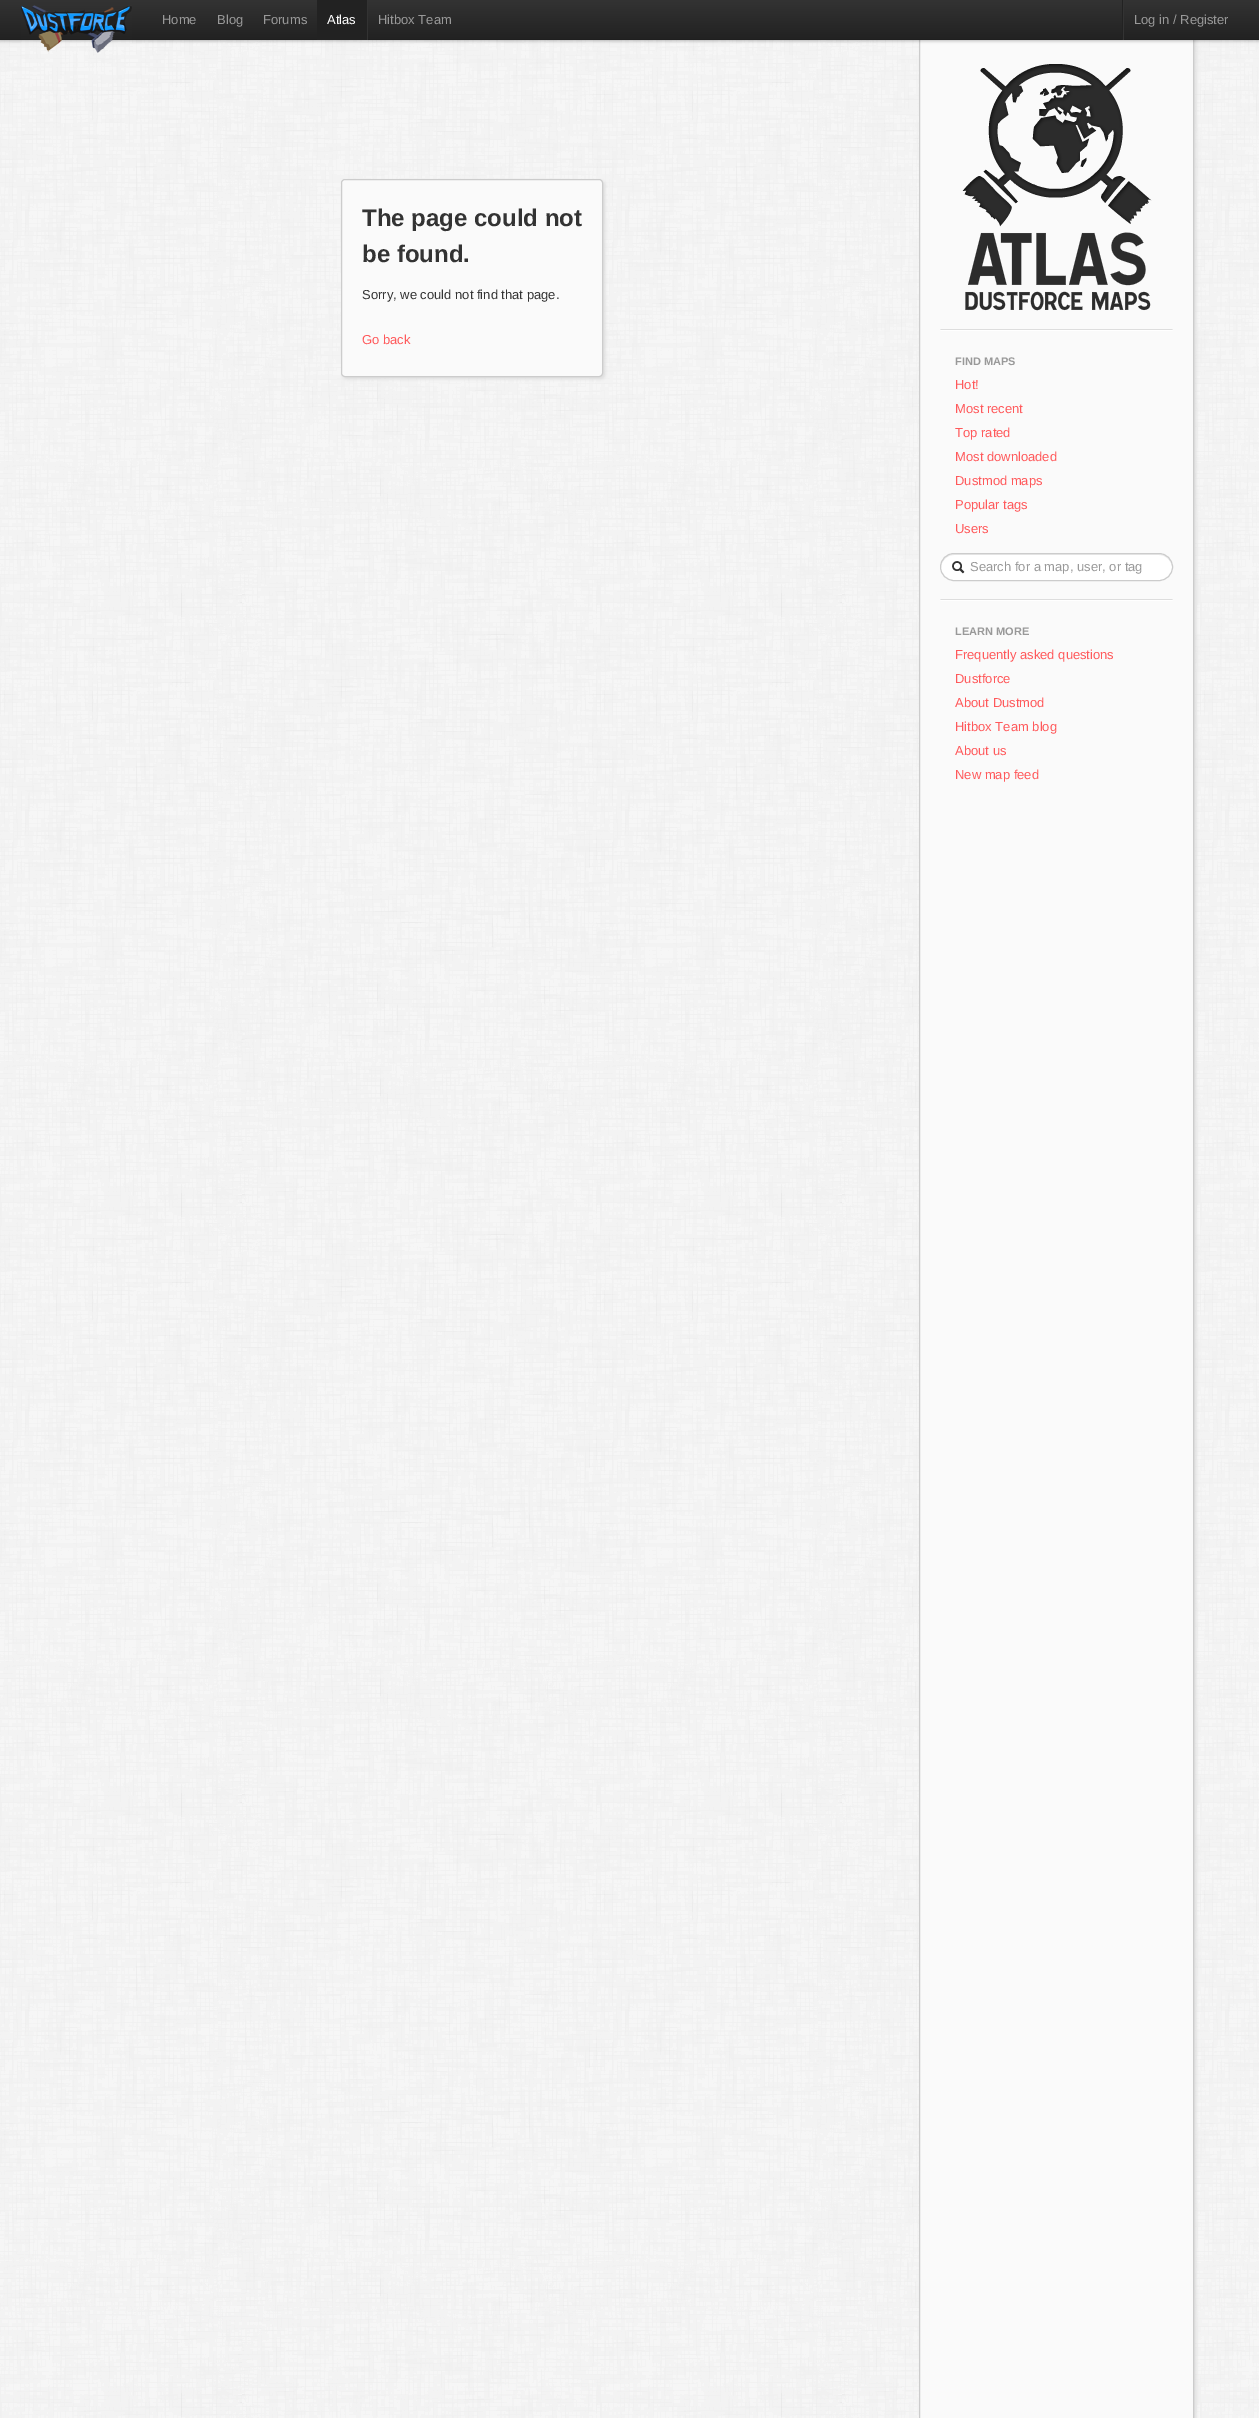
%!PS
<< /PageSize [1259 2418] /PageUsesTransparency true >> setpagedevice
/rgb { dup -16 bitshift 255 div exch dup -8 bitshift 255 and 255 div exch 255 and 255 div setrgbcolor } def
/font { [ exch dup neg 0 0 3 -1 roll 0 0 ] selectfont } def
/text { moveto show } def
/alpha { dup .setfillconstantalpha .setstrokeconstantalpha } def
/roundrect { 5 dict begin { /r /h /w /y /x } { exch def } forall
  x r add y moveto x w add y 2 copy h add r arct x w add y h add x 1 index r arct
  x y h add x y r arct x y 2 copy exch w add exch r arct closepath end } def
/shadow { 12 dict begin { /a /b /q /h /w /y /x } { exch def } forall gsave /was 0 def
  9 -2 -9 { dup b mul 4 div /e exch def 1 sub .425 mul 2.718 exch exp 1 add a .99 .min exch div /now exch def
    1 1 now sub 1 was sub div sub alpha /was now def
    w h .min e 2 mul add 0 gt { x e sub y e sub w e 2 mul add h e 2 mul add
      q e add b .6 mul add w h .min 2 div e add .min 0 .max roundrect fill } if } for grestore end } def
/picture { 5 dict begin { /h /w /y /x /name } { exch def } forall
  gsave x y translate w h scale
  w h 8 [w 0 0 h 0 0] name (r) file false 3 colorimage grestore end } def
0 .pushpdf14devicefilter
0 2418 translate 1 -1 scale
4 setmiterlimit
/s1 { /LiberationSans-Regular 13 font 16#999999 rgb } def
/s2 { /LiberationSans-Regular 13 font 16#FFFFFF rgb } def
/s3 { /LiberationSans-Bold 24 font 16#333333 rgb } def
/s4 { /LiberationSans-Regular 13 font 16#333333 rgb } def
/s5 { /LiberationSans-Regular 13 font 16#FF595B rgb } def
/s6 { /LiberationSans-Bold 11 font 16#999999 rgb } def
16#FFFFFF rgb
0 0 1259 2418 rectfill
(pic1.raw) 0 40 1259 2378 picture
16#DDDDDD rgb
921 2 275 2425 4 1.5 1 shadow
16#FAFAFA rgb
920 40 273 2378 rectfill
16#CCCCCC rgb
919.5 0.5 274 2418 rectstroke
16#000000 rgb
0 1 1259 40 0 1.5 0.25 shadow
gsave 0 0 moveto 1259 0 lineto 1259 39 lineto 0 39 lineto closepath clip newpath
<< /ShadingType 2 /ColorSpace /DeviceRGB /Coords [630 0 630 40] /Extend [true true] /Function << /FunctionType 2 /Domain [0 1] /C0 [0.2 0.2 0.2] /C1 [0.133 0.133 0.133] /N 1 >> >> shfill grestore
16#1F1F1F rgb
0 39 1259 1 rectfill
(pic2.raw) 21 5 111 48 picture
s1
(Home) 162 24 text
(Blog) 217 24 text
(Forums) 263 24 text
16#222222 rgb
317 0 50 40 rectfill
s2
(Atlas) 327 24 text
16#333333 rgb
367 0 1 40 rectfill
s1
(Hitbox Team) 378 24 text
16#222222 rgb
1122 0 1 40 rectfill
16#333333 rgb
1123 0 1 40 rectfill
s1
(Log in / Register) 1134 24 text
16#DDDDDD rgb
343 181 262 198 4 1.5 1 shadow
16#FAFAFA rgb
341.5 179.5 261 197 3.5 roundrect gsave fill grestore
16#CCCCCC rgb
stroke
s3
(The page could not) 362 226 text
(be found.) 362 262 text
s4
(Sorry, we could not find that page.) 362 299 text
s5
(Go back) 362 344 text
(pic3.raw) 962 64 190 247 picture
16#DDDDDD rgb
940 329 moveto 1173 329 lineto 1172 330 lineto 941 330 lineto closepath fill
16#FFFFFF rgb
1173 331 moveto 940 331 lineto 941 330 lineto 1172 330 lineto closepath fill
s6
(FIND MAPS) 955 365 text
s5
(Hot!) 955 389 text
(Most recent) 955 413 text
(Top rated) 955 437 text
(Most downloaded) 955 461 text
(Dustmod maps) 955 485 text
(Popular tags) 955 509 text
(Users) 955 533 text
16#FFFFFF rgb
940 553 233 28 14 roundrect fill
16#ECECEC rgb
954 555 moveto 1159 555 lineto 1166 555 1172 561 1172 568 curveto 1172 560 1166 554 1159 554 curveto 954 554 lineto 947 554 941 560 941 568 curveto 941 561 947 555 954 555 curveto closepath fill
16#CCCCCC rgb
940.5 553.5 232 27 13.5 roundrect stroke
(pic4.raw) 952 561 13 13 picture
s1
(Search for a map, user, or tag) 970 571 text
16#DDDDDD rgb
940 599 moveto 1173 599 lineto 1172 600 lineto 941 600 lineto closepath fill
16#FFFFFF rgb
1173 601 moveto 940 601 lineto 941 600 lineto 1172 600 lineto closepath fill
s6
(LEARN MORE) 955 635 text
s5
(Frequently asked questions) 955 659 text
(Dustforce) 955 683 text
(About Dustmod) 955 707 text
(Hitbox Team blog) 955 731 text
(About us) 955 755 text
(New map feed) 955 779 text
.poppdf14devicefilter showpage
